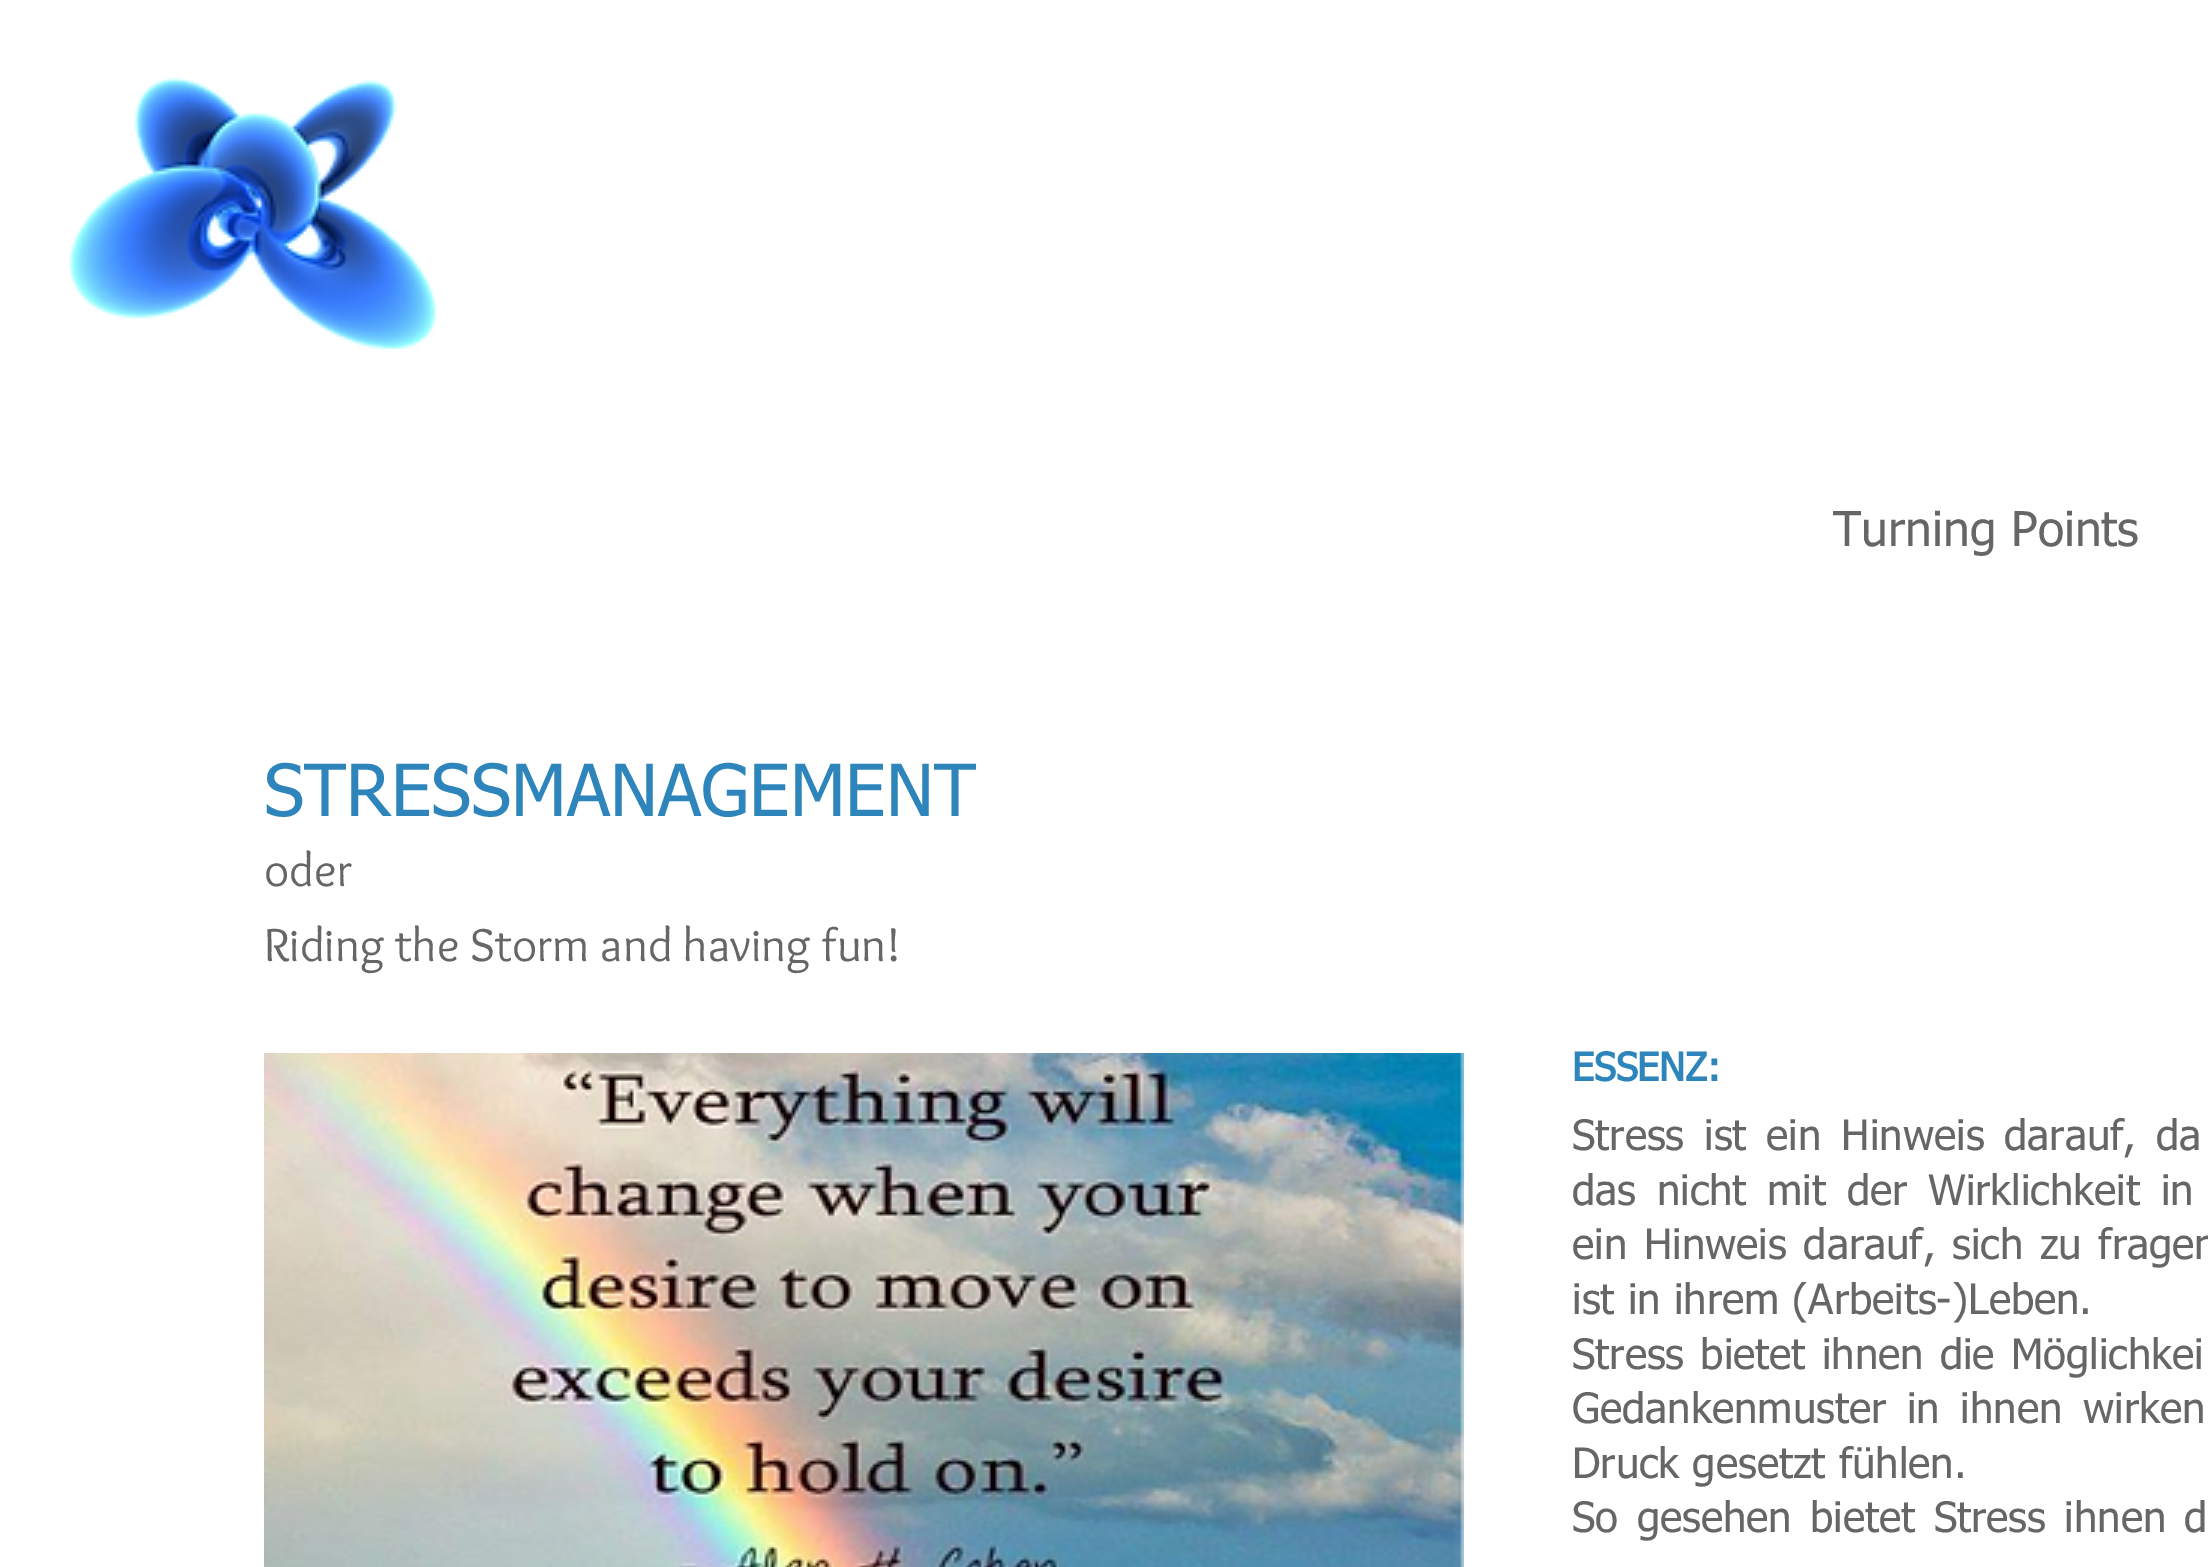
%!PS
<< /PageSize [2208 1567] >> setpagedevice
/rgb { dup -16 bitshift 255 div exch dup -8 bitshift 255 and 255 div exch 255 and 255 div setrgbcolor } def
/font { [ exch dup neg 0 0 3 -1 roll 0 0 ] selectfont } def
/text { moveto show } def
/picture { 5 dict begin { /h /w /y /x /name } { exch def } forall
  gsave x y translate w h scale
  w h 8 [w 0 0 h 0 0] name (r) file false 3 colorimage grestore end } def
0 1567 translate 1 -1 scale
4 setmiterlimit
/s1 { /tahoma-Regular 48 font 16#666666 rgb } def
/s2 { /tahoma-Regular 72 font 16#2D85BC rgb } def
/s3 { /Overlock-Regular 48 font 16#666666 rgb } def
/s4 { /tahoma-Bold 39 font 16#2D85BC rgb } def
/s5 { /tahoma-Regular 42 font 16#666666 rgb } def
16#FFFFFF rgb
0 0 2208 1567 rectfill
(pic1.raw) 68 77 369 275 picture
s1
(Turning Points) 1833 546 text
s2
(STRESSMANAGEMENT) 264 816 text
s3
(oder) 264 886 text
(Riding the Storm and having fun!) 264 961 text
(pic2.raw) 264 1053 1200 514 picture
s4
(ESSENZ:) 1572 1081 text
/tahoma-Regular 42 font
16#666666 rgb
1572 1150 moveto 6.75 0 32 (Stress ist ein Hinweis darauf, da) widthshow
1572 1205 moveto 7.5 0 32 (das nicht mit der Wirklichkeit in) widthshow
1572 1259 moveto 3.5 0 32 (ein Hinweis darauf, sich zu fragen) widthshow
(ist in ihrem \(Arbeits-\)Leben.) 1572 1314 text
1572 1369 moveto 3 0 32 (Stress bietet ihnen die Möglichkei) widthshow
1572 1423 moveto 7.5 0 32 (Gedankenmuster in ihnen wirken) widthshow
(Druck gesetzt fühlen.) 1572 1478 text
1572 1532 moveto 5.25 0 32 (So gesehen bietet Stress ihnen d) widthshow
showpage
